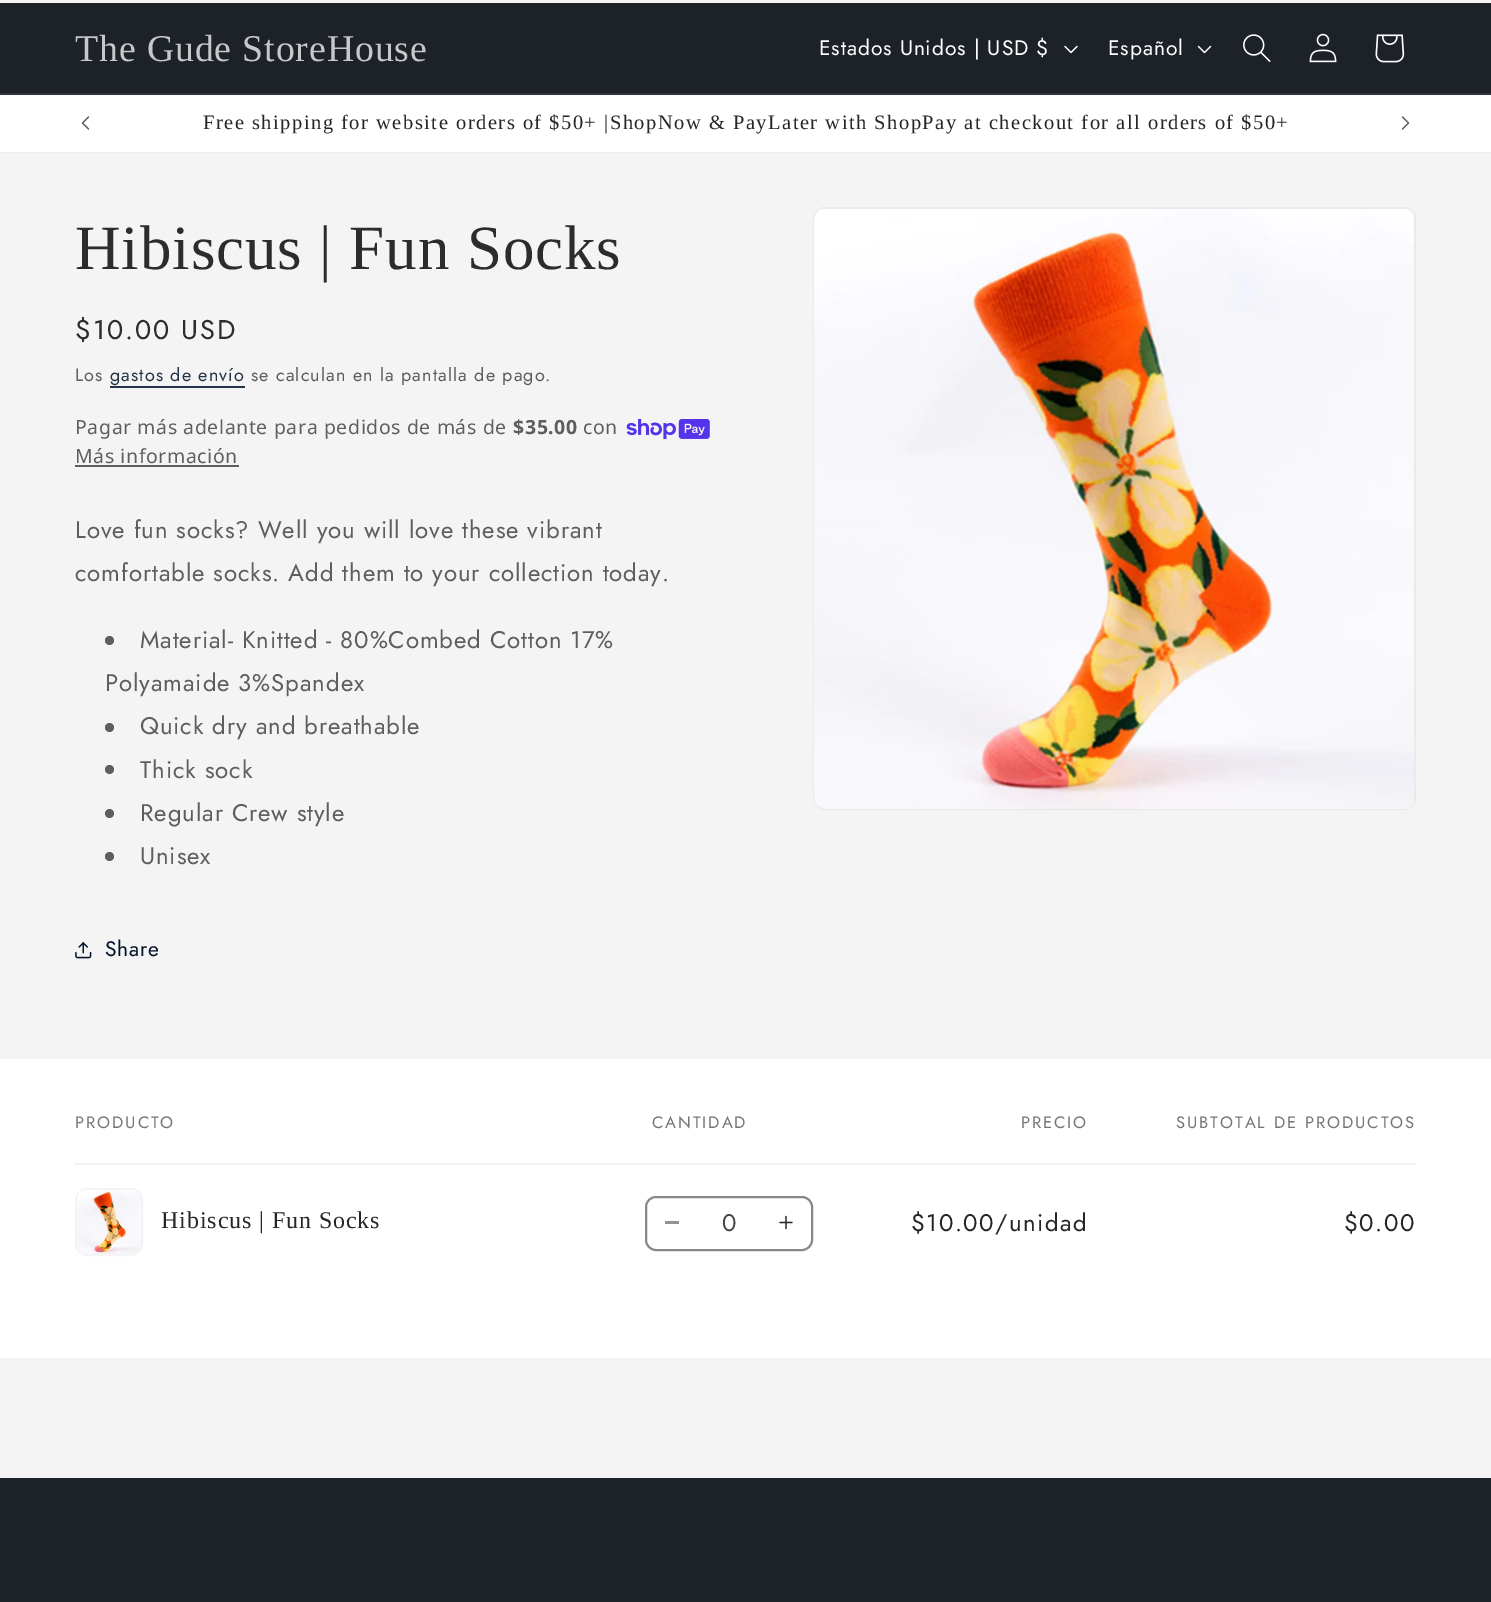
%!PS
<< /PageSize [1491 1602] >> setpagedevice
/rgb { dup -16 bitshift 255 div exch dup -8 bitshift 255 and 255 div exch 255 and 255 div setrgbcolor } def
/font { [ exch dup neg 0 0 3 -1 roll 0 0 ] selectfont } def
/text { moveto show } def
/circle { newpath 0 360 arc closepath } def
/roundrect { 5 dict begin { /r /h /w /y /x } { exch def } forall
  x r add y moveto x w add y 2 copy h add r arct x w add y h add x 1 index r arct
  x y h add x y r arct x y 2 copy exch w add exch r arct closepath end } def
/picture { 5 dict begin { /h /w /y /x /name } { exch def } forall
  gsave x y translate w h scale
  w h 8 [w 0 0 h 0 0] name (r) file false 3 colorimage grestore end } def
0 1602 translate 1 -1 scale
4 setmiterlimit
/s1 { /Jost-Regular 24 font 16#474747 rgb } def
16#F4F4F4 rgb
0 0 1491 1602 rectfill
16#1C2228 rgb
0 3 1491 90 rectfill
16#2E3439 rgb
0 93 1491 2 rectfill
/LiberationSerif-Regular 37.75 font
16#C6C8C9 rgb
75 61 moveto 0.9 0 (The Gude StoreHouse) ashow
/Jost-Regular 21 font
16#FFFFFF rgb
819 55 moveto 0.9 0 (Estados Unidos | USD $) ashow
(pic1.raw) 1064 45 14 9 picture
1108 55 moveto 0.9 0 (Español) ashow
(pic2.raw) 1197 45 15 9 picture
(pic3.raw) 1243 34 28 28 picture
(pic4.raw) 1309 33 28 30 picture
(pic5.raw) 1375 34 30 29 picture
0 95 1491 57 rectfill
16#EEEEEE rgb
0 152 1491 1 rectfill
(pic6.raw) 81 116 9 14 picture
/LiberationSerif-Regular 20.48 font
16#262626 rgb
203 129 moveto 1.5 0 (Free shipping for website orders of $50+ |ShopNow & PayLater with ShopPay at checkout for all orders of $50+) ashow
(pic7.raw) 1401 116 9 14 picture
/LiberationSerif-Regular 63 font
16#2B2C2D rgb
75 269 moveto 0.9 0 (Hibiscus | Fun Socks) ashow
/Jost-Regular 27 font
75 339 moveto 1.95 0 ($10.00 USD) ashow
/Jost-Regular 18 font
16#5D5E5F rgb
75 381 moveto 1.05 0 (Los) ashow
16#253347 rgb
110 381 moveto 1.05 0 (gastos de envío) ashow
110 386 135 2 rectfill
16#5D5E5F rgb
251 381 moveto 1.05 0 (se calculan en la pantalla de pago.) ashow
/NotoSans-Regular 19.5 font
75 434 moveto 0.6 0 (Pagar más adelante para pedidos de más de) ashow
/NotoSans-Bold 19.5 font
513 434 moveto 0.6 0 ($35.00) ashow
/NotoSans-Regular 19.5 font
583 434 moveto 0.6 0 (con) ashow
(pic8.raw) 626 419 84 21 picture
75 463 moveto 0.6 0 (Más información) ashow
75 465 164 2 rectfill
/Jost-Regular 24 font
75 538 moveto 0.9 0 (Love fun socks? Well you will love these vibrant) ashow
75 581 moveto 0.9 0 (comfortable socks. Add them to your collection today.) ashow
109.5 640.5 4.5 circle fill
140 648 moveto 0.9 0 (Material- Knitted - 80%Combed Cotton 17%) ashow
105 691 moveto 0.9 0 (Polyamaide 3%Spandex) ashow
109.5 727.5 4.5 circle fill
140 734 moveto 0.9 0 (Quick dry and breathable) ashow
109.5 769.5 4.5 circle fill
140 778 moveto 0.9 0 (Thick sock) ashow
109.5 813.5 4.5 circle fill
140 821 moveto 0.9 0 (Regular Crew style) ashow
109.5 856.5 4.5 circle fill
140 864 moveto 0.9 0 (Unisex) ashow
(pic9.raw) 75 942 17 17 picture
/Jost-Regular 21 font
16#001128 rgb
105 956 moveto 0.9 0 (Share) ashow
16#EAEAEA rgb
2 setlinewidth
814 208 601 601 11 roundrect stroke
(pic10.raw) 814 209 600 600 picture
16#FFFFFF rgb
0 1059 1491 299 rectfill
16#F0F0F0 rgb
75 1163 1341 2 rectfill
/Jost-Regular 16.5 font
16#757575 rgb
75 1128 moveto 1.95 0 (PRODUCTO) ashow
652 1128 moveto 1.95 0 (CANTIDAD) ashow
1021 1128 moveto 1.95 0 (PRECIO) ashow
1176 1128 moveto 1.95 0 (SUBTOTAL DE PRODUCTOS) ashow
16#F4F4F4 rgb
76 1189 66 66 11 roundrect stroke
(pic11.raw) 77 1190 64 64 picture
/LiberationSerif-Regular 24 font
16#262626 rgb
161 1228 moveto 0.9 0 (Hibiscus | Fun Socks) ashow
16#939393 rgb
665 1221 14 3 rectfill
(pic12.raw) 779 1215 14 15 picture
16#888888 rgb
646 1197 166 53 10 roundrect stroke
s1
(0) 722 1231 text
16#262626 rgb
911 1231 moveto 1.5 0 ($10.00/unidad) ashow
1344 1231 moveto 1.5 0 ($0.00) ashow
16#1C2228 rgb
0 1478 1491 124 rectfill
showpage
